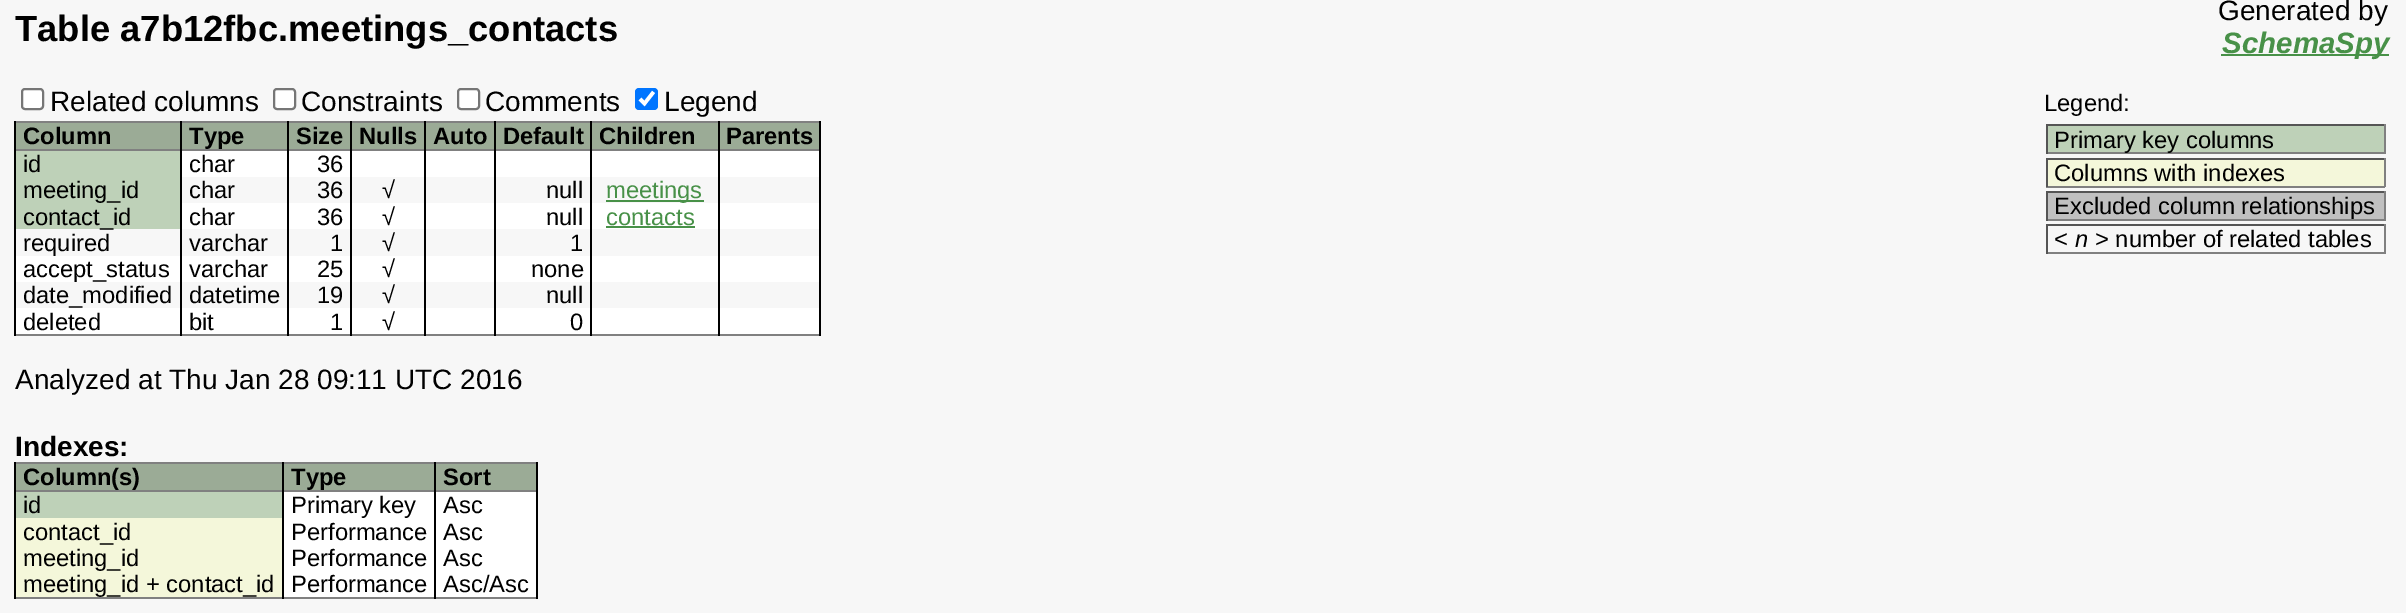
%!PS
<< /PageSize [2406 613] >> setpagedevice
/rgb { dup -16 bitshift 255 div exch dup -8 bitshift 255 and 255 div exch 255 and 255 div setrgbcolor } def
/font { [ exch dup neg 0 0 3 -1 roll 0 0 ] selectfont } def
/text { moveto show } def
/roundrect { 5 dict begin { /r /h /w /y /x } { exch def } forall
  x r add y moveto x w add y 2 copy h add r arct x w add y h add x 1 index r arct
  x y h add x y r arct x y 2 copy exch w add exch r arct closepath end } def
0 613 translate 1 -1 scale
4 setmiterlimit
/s1 { /LiberationSans-Bold 36.4 font 16#000000 rgb } def
/s2 { /LiberationSans-Regular 28 font 16#000000 rgb } def
/s3 { /LiberationSans-BoldItalic 29.5 font 16#489148 rgb } def
/s4 { /LiberationSans-Regular 23.75 font 16#000000 rgb } def
/s5 { /LiberationSans-Italic 23.75 font 16#000000 rgb } def
/s6 { /LiberationSans-Bold 23.75 font 16#000000 rgb } def
/s7 { /LiberationSans-Regular 23.75 font 16#489148 rgb } def
/s8 { /LiberationSans-Bold 28 font 16#000000 rgb } def
16#F7F7F7 rgb
0 0 2406 613 rectfill
s1
(Table a7b12fbc.meetings_contacts) 15 41 text
s2
(Generated by) 2218 20 text
16#489148 rgb
2221 54 168 2 rectfill
s3
(SchemaSpy) 2222 53 text
16#FFFFFF rgb
22 89 21 20 3 roundrect gsave fill grestore
16#767676 rgb
2 setlinewidth
stroke
s2
(Related columns) 50 111 text
16#FFFFFF rgb
274 89 21 20 3 roundrect gsave fill grestore
16#767676 rgb
stroke
s2
(Constraints) 301 111 text
16#FFFFFF rgb
458 89 21 20 3 roundrect gsave fill grestore
16#767676 rgb
stroke
s2
(Comments) 485 111 text
16#0075FF rgb
635 88 23 22 4 roundrect fill
16#FFFFFF rgb
3.6 setlinewidth
640 99 moveto 644.5 103.5 lineto 653.5 92 lineto stroke
s2
(Legend) 664 111 text
s4
(Legend:) 2044 111 text
16#BED1B8 rgb
2048 126 336 26 rectfill
16#555555 rgb
2046 124 339 2 rectfill
16#808080 rgb
2384 124 2 30 rectfill
2046 152 339 2 rectfill
16#555555 rgb
2046 124 2 30 rectfill
s4
(Primary key columns) 2054 148 text
16#F4F7DA rgb
2048 160 336 26 rectfill
16#555555 rgb
2046 158 339 2 rectfill
16#808080 rgb
2384 158 2 29 rectfill
2046 186 339 2 rectfill
16#555555 rgb
2046 158 2 29 rectfill
s4
(Columns with indexes) 2054 181 text
16#C0C0C0 rgb
2048 193 336 26 rectfill
16#555555 rgb
2046 191 339 2 rectfill
16#808080 rgb
2384 191 2 30 rectfill
2046 219 339 2 rectfill
16#555555 rgb
2046 191 2 30 rectfill
s4
(Excluded column relationships) 2054 214 text
16#555555 rgb
2046 224 339 2 rectfill
16#808080 rgb
2384 224 2 30 rectfill
2046 252 339 2 rectfill
16#555555 rgb
2046 224 2 30 rectfill
s4
(<) 2054 247 text
s5
(n) 2075 247 text
s4
(> number of related tables) 2095 247 text
16#808080 rgb
14 121 807 2 rectfill
14 149 807 2 rectfill
14 334 807 2 rectfill
16#000000 rgb
14 121 2 215 rectfill
180 121 2 215 rectfill
287 121 2 215 rectfill
350 121 2 215 rectfill
424 121 2 215 rectfill
494 121 2 215 rectfill
590 121 2 215 rectfill
819 121 2 215 rectfill
718 121 2 215 rectfill
16#9BAB96 rgb
16 123 164 26 rectfill
s6
(Column) 23 144 text
16#9BAB96 rgb
182 123 105 26 rectfill
s6
(Type) 189 144 text
16#9BAB96 rgb
289 123 61 26 rectfill
s6
(Size) 296 144 text
16#9BAB96 rgb
352 123 72 26 rectfill
s6
(Nulls) 359 144 text
16#9BAB96 rgb
426 123 68 26 rectfill
s6
(Auto) 433 144 text
16#9BAB96 rgb
496 123 94 26 rectfill
s6
(Default) 503 144 text
16#9BAB96 rgb
592 123 126 26 rectfill
s6
(Children) 599 144 text
16#9BAB96 rgb
720 123 99 26 rectfill
s6
(Parents) 726 144 text
16#BED1B8 rgb
16 151 164 78 rectfill
s4
(id) 23 172 text
16#FFFFFF rgb
182 151 105 26 rectfill
s4
(char) 189 172 text
16#FFFFFF rgb
289 151 61 26 rectfill
s4
(36) 317 172 text
16#FFFFFF rgb
352 151 72 26 rectfill
426 151 68 26 rectfill
496 151 94 26 rectfill
592 151 126 26 rectfill
720 151 99 26 rectfill
s4
(meeting_id) 23 198 text
(char) 189 198 text
(36) 317 198 text
(√) 382 198 text
(null) 546 198 text
16#489148 rgb
606 200 98 2 rectfill
(meetings) 606 198 text
s4
(contact_id) 23 225 text
16#FFFFFF rgb
182 203 105 26 rectfill
s4
(char) 189 225 text
16#FFFFFF rgb
289 203 61 26 rectfill
s4
(36) 317 225 text
16#FFFFFF rgb
352 203 72 26 rectfill
s4
(√) 382 225 text
16#FFFFFF rgb
426 203 68 26 rectfill
496 203 94 26 rectfill
s4
(null) 546 225 text
16#FFFFFF rgb
592 203 126 26 rectfill
s7
(contacts) 606 225 text
606 226 89 2 rectfill
16#FFFFFF rgb
720 203 99 26 rectfill
s4
(required) 23 251 text
(varchar) 189 251 text
(1) 330 251 text
(√) 382 251 text
(1) 570 251 text
16#FFFFFF rgb
16 256 164 26 rectfill
s4
(accept_status) 23 277 text
16#FFFFFF rgb
182 256 105 26 rectfill
s4
(varchar) 189 277 text
16#FFFFFF rgb
289 256 61 26 rectfill
s4
(25) 317 277 text
16#FFFFFF rgb
352 256 72 26 rectfill
s4
(√) 382 277 text
16#FFFFFF rgb
426 256 68 26 rectfill
496 256 94 26 rectfill
s4
(none) 531 277 text
16#FFFFFF rgb
592 256 126 26 rectfill
720 256 99 26 rectfill
s4
(date_modified) 23 303 text
(datetime) 189 303 text
(19) 317 303 text
(√) 382 303 text
(null) 546 303 text
16#FFFFFF rgb
16 308 164 26 rectfill
s4
(deleted) 23 330 text
16#FFFFFF rgb
182 308 105 26 rectfill
s4
(bit) 189 330 text
16#FFFFFF rgb
289 308 61 26 rectfill
s4
(1) 330 330 text
16#FFFFFF rgb
352 308 72 26 rectfill
s4
(√) 382 330 text
16#FFFFFF rgb
426 308 68 26 rectfill
496 308 94 26 rectfill
s4
(0) 570 330 text
16#FFFFFF rgb
592 308 126 26 rectfill
720 308 99 26 rectfill
s2
(Analyzed at Thu Jan 28 09:11 UTC 2016) 15 389 text
s8
(Indexes:) 15 456 text
16#808080 rgb
14 462 523 2 rectfill
14 490 523 2 rectfill
14 597 523 2 rectfill
16#000000 rgb
14 462 2 137 rectfill
282 462 2 137 rectfill
536 462 2 137 rectfill
434 462 2 137 rectfill
16#9BAB96 rgb
16 464 266 26 rectfill
s6
(Column\(s\)) 23 485 text
16#9BAB96 rgb
284 464 150 26 rectfill
s6
(Type) 291 485 text
16#9BAB96 rgb
436 464 100 26 rectfill
s6
(Sort) 443 485 text
16#BED1B8 rgb
16 492 266 26 rectfill
s4
(id) 23 513 text
16#FFFFFF rgb
284 492 150 105 rectfill
s4
(Primary key) 291 513 text
16#FFFFFF rgb
436 492 100 105 rectfill
s4
(Asc) 443 513 text
16#F4F7DA rgb
16 518 266 79 rectfill
s4
(contact_id) 23 540 text
(Performance) 291 540 text
(Asc) 443 540 text
(meeting_id) 23 566 text
(Performance) 291 566 text
(Asc) 443 566 text
(meeting_id + contact_id) 23 592 text
(Performance) 291 592 text
(Asc/Asc) 443 592 text
showpage
